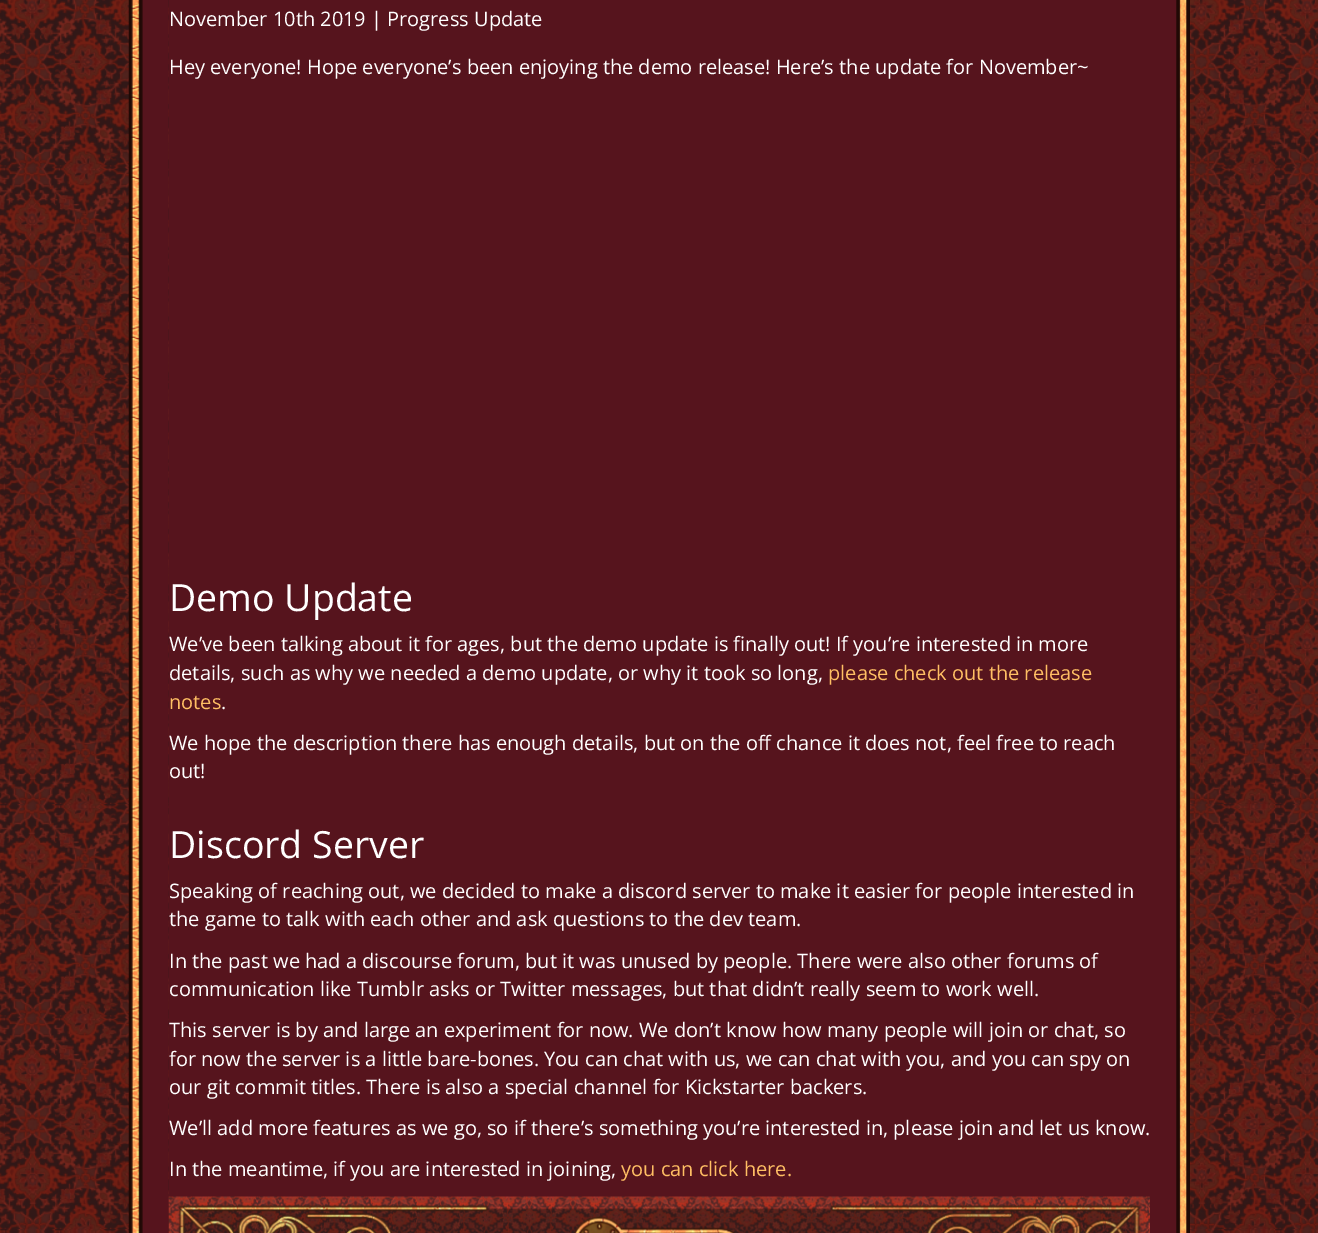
%!PS
<< /PageSize [1318 1233] >> setpagedevice
/rgb { dup -16 bitshift 255 div exch dup -8 bitshift 255 and 255 div exch 255 and 255 div setrgbcolor } def
/font { [ exch dup neg 0 0 3 -1 roll 0 0 ] selectfont } def
/text { moveto show } def
/picture { 5 dict begin { /h /w /y /x /name } { exch def } forall
  gsave x y translate w h scale
  w h 8 [w 0 0 h 0 0] name (r) file false 3 colorimage grestore end } def
0 1233 translate 1 -1 scale
4 setmiterlimit
/s1 { /OpenSans-Regular 20 font 16#FFFFFF rgb } def
/s2 { /OpenSans-Regular 37.5 font 16#FFFFFF rgb } def
/s3 { /OpenSans-Regular 20 font 16#FFBF64 rgb } def
16#FFFFFF rgb
0 0 1318 1233 rectfill
(pic1.raw) 0 0 1318 1233 picture
(pic2.raw) 128 0 1062 1233 picture
16#56141D rgb
169 0 981 1197 rectfill
s1
(November 10th 2019 | Progress Update) 169 26 text
(Hey everyone! Hope everyone’s been enjoying the demo release! Here’s the update for November~) 169 74 text
s2
(Demo Update) 169 611 text
s1
(We’ve been talking about it for ages, but the demo update is finally out! If you’re interested in more) 169 651 text
(details, such as why we needed a demo update, or why it took so long,) 169 680 text
s3
(please check out the release) 828 680 text
(notes) 169 709 text
s1
(.) 221 709 text
(We hope the description there has enough details, but on the off chance it does not, feel free to reach) 169 750 text
(out!) 169 778 text
s2
(Discord Server) 169 858 text
s1
(Speaking of reaching out, we decided to make a discord server to make it easier for people interested in) 169 898 text
(the game to talk with each other and ask questions to the dev team.) 169 926 text
(In the past we had a discourse forum, but it was unused by people. There were also other forums of) 169 968 text
(communication like Tumblr asks or Twitter messages, but that didn’t really seem to work well.) 169 996 text
(This server is by and large an experiment for now. We don’t know how many people will join or chat, so) 169 1037 text
(for now the server is a little bare-bones. You can chat with us, we can chat with you, and you can spy on) 169 1066 text
(our git commit titles. There is also a special channel for Kickstarter backers.) 169 1094 text
(We’ll add more features as we go, so if there’s something you’re interested in, please join and let us know.) 169 1135 text
(In the meantime, if you are interested in joining,) 169 1176 text
s3
(you can click here.) 621 1176 text
(pic3.raw) 168 1196 982 37 picture
showpage
